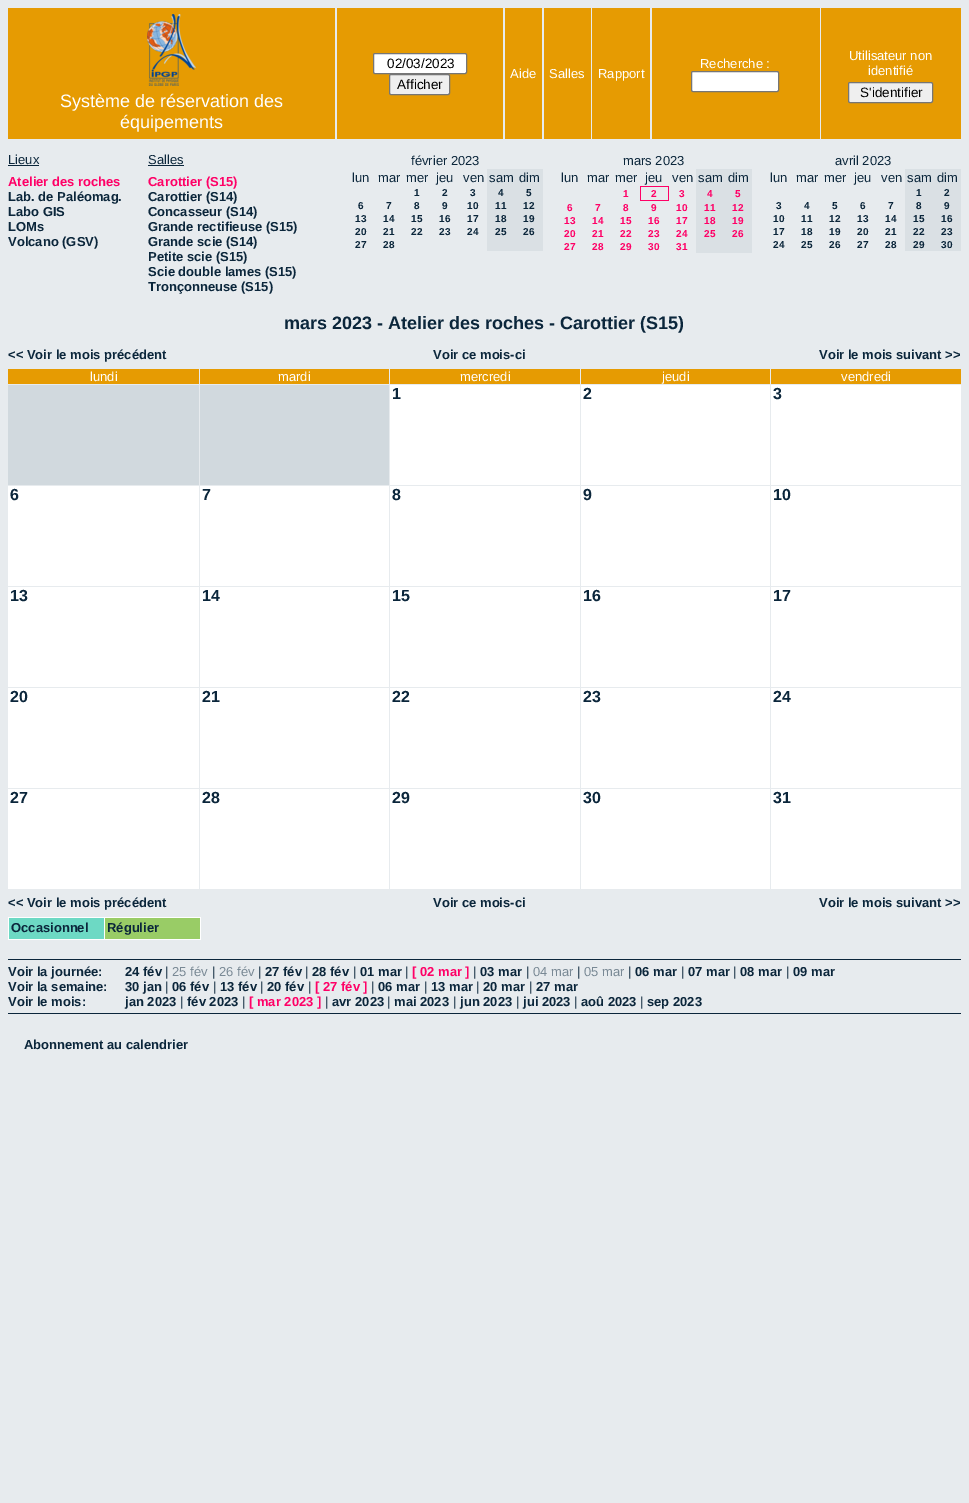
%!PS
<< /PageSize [969 1503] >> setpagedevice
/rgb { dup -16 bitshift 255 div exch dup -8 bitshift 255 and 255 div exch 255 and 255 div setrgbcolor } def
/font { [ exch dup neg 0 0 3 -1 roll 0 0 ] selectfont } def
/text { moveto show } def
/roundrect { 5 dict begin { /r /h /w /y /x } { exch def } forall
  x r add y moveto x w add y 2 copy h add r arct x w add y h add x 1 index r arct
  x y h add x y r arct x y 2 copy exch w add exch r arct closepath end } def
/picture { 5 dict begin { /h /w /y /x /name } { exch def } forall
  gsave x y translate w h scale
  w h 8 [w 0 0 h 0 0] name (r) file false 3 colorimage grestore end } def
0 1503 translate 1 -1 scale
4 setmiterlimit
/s1 { /LiberationSans-Regular 13.5 font 16#000000 rgb } def
/s2 { /LiberationSans-Regular 13 font 16#FFFFFF rgb } def
/s3 { /LiberationSans-Regular 18 font 16#FFFFFF rgb } def
/s4 { /LiberationSans-Regular 13 font 16#0B263B rgb } def
/s5 { /LiberationSans-Bold 13 font 16#FF0066 rgb } def
/s6 { /LiberationSans-Bold 13 font 16#0B263B rgb } def
/s7 { /LiberationSans-Bold 10 font 16#0B263B rgb } def
/s8 { /LiberationSans-Bold 10 font 16#FF0066 rgb } def
/s9 { /LiberationSans-Bold 18 font 16#0B263B rgb } def
/s10 { /LiberationSans-Bold 16 font 16#0B263B rgb } def
/s11 { /LiberationSans-Regular 13 font 16#798995 rgb } def
16#E7EBEE rgb
0 0 969 1503 rectfill
16#E69B02 rgb
337 8 166 131 rectfill
16#FFFFFF rgb
373.5 53.5 93 20 1.5 roundrect gsave fill grestore
16#767676 rgb
stroke
s1
(02/03/2023) 387 68 text
16#EFEFEF rgb
389.5 74.5 60 20 1.5 roundrect gsave fill grestore
16#767676 rgb
stroke
s1
(Afficher) 397 89 text
16#E69B02 rgb
652 8 168 131 rectfill
s2
(Recherche :) 700 68 text
691.5 71.5 87 20 1.5 roundrect gsave fill grestore
16#767676 rgb
stroke
16#E69B02 rgb
821 8 140 131 rectfill
s2
(Utilisateur non) 849 60 text
(identifié) 868 75 text
16#EFEFEF rgb
848.5 82.5 84 20 1.5 roundrect gsave fill grestore
16#767676 rgb
stroke
s1
(S'identifier) 860 97 text
16#E69B02 rgb
505 8 37 131 rectfill
s2
(Aide) 510 78 text
16#E69B02 rgb
544 8 47 131 rectfill
s2
(Salles) 549 78 text
16#E69B02 rgb
592 8 58 131 rectfill
s2
(Rapport) 598 78 text
16#E69B02 rgb
8 8 327 131 rectfill
(pic1.raw) 147 14 49 72 picture
s3
(Système de réservation des) 60 107 text
(équipements) 120 128 text
s4
(Lieux) 8 164 text
8 165 31 1 rectfill
s5
(Atelier des roches) 8 186 text
s6
(Lab. de Paléomag.) 8 201 text
(Labo GIS) 8 216 text
(LOMs) 8 231 text
(Volcano \(GSV\)) 8 246 text
s4
(Salles) 148 164 text
148 165 36 1 rectfill
s5
(Carottier \(S15\)) 148 186 text
s6
(Carottier \(S14\)) 148 201 text
(Concasseur \(S14\)) 148 216 text
(Grande rectifieuse \(S15\)) 148 231 text
(Grande scie \(S14\)) 148 246 text
(Petite scie \(S15\)) 148 261 text
(Scie double lames \(S15\)) 148 276 text
(Tronçonneuse \(S15\)) 148 291 text
s4
(février 2023) 411 165 text
(lun) 352 182 text
(mar) 378 182 text
(mer) 406 182 text
(jeu) 436 182 text
(ven) 463 182 text
16#DAE0E4 rgb
487 169 56 17 rectfill
s4
(sam) 489 182 text
(dim) 519 182 text
s7
(1) 414 196 text
(2) 442 196 text
(3) 470 196 text
16#DAE0E4 rgb
487 186 56 13 rectfill
s7
(4) 498 196 text
(5) 526 196 text
(6) 358 209 text
(7) 386 209 text
(8) 414 209 text
(9) 442 209 text
(10) 467 209 text
16#DAE0E4 rgb
487 199 56 13 rectfill
s7
(11) 495 209 text
(12) 523 209 text
(13) 355 222 text
(14) 383 222 text
(15) 411 222 text
(16) 439 222 text
(17) 467 222 text
16#DAE0E4 rgb
487 212 56 13 rectfill
s7
(18) 495 222 text
(19) 523 222 text
(20) 355 235 text
(21) 383 235 text
(22) 411 235 text
(23) 439 235 text
(24) 467 235 text
16#DAE0E4 rgb
487 225 56 13 rectfill
s7
(25) 495 235 text
(26) 523 235 text
(27) 355 248 text
(28) 383 248 text
16#DAE0E4 rgb
487 238 56 13 rectfill
s4
(mars 2023) 623 165 text
(lun) 561 182 text
(mar) 587 182 text
(mer) 615 182 text
(jeu) 645 182 text
(ven) 672 182 text
16#DAE0E4 rgb
696 169 56 18 rectfill
s4
(sam) 698 182 text
(dim) 728 182 text
s8
(1) 623 197 text
640 186 29 1 rectfill
668 186 1 15 rectfill
640 200 29 1 rectfill
640 186 1 15 rectfill
(2) 651 197 text
(3) 679 197 text
16#DAE0E4 rgb
696 187 56 14 rectfill
s8
(4) 707 197 text
(5) 735 197 text
(6) 567 211 text
(7) 595 211 text
(8) 623 211 text
(9) 651 211 text
(10) 676 211 text
16#DAE0E4 rgb
696 201 56 13 rectfill
s8
(11) 704 211 text
(12) 732 211 text
(13) 564 224 text
(14) 592 224 text
(15) 620 224 text
(16) 648 224 text
(17) 676 224 text
16#DAE0E4 rgb
696 214 56 13 rectfill
s8
(18) 704 224 text
(19) 732 224 text
(20) 564 237 text
(21) 592 237 text
(22) 620 237 text
(23) 648 237 text
(24) 676 237 text
16#DAE0E4 rgb
696 227 56 13 rectfill
s8
(25) 704 237 text
(26) 732 237 text
(27) 564 250 text
(28) 592 250 text
(29) 620 250 text
(30) 648 250 text
(31) 676 250 text
16#DAE0E4 rgb
696 240 56 13 rectfill
s4
(avril 2023) 835 165 text
(lun) 770 182 text
(mar) 796 182 text
(mer) 824 182 text
(jeu) 854 182 text
(ven) 881 182 text
16#DAE0E4 rgb
905 169 56 17 rectfill
s4
(sam) 907 182 text
(dim) 937 182 text
16#DAE0E4 rgb
905 186 56 13 rectfill
s7
(1) 916 196 text
(2) 944 196 text
(3) 776 209 text
(4) 804 209 text
(5) 832 209 text
(6) 860 209 text
(7) 888 209 text
16#DAE0E4 rgb
905 199 56 13 rectfill
s7
(8) 916 209 text
(9) 944 209 text
(10) 773 222 text
(11) 801 222 text
(12) 829 222 text
(13) 857 222 text
(14) 885 222 text
16#DAE0E4 rgb
905 212 56 13 rectfill
s7
(15) 913 222 text
(16) 941 222 text
(17) 773 235 text
(18) 801 235 text
(19) 829 235 text
(20) 857 235 text
(21) 885 235 text
16#DAE0E4 rgb
905 225 56 13 rectfill
s7
(22) 913 235 text
(23) 941 235 text
(24) 773 248 text
(25) 801 248 text
(26) 829 248 text
(27) 857 248 text
(28) 885 248 text
16#DAE0E4 rgb
905 238 56 13 rectfill
s7
(29) 913 248 text
(30) 941 248 text
s9
(mars 2023 - Atelier des roches - Carottier \(S15\)) 284 329 text
s6
(<< Voir le mois précédent) 8 359 text
(Voir ce mois-ci) 433 359 text
(Voir le mois suivant >>) 819 359 text
16#E69B02 rgb
8 369 191 15 rectfill
s2
(lundi) 90 381 text
16#E69B02 rgb
200 369 189 15 rectfill
s2
(mardi) 278 381 text
16#E69B02 rgb
390 369 190 15 rectfill
s2
(mercredi) 460 381 text
16#E69B02 rgb
581 369 189 15 rectfill
s2
(jeudi) 662 381 text
16#E69B02 rgb
771 369 190 15 rectfill
s2
(vendredi) 841 381 text
16#D1D9DE rgb
8 385 191 100 rectfill
200 385 189 100 rectfill
16#FFFFFF rgb
390 385 190 100 rectfill
s10
(1) 392 399 text
16#FFFFFF rgb
581 385 189 100 rectfill
s10
(2) 583 399 text
16#FFFFFF rgb
771 385 190 100 rectfill
s10
(3) 773 399 text
16#FFFFFF rgb
8 486 191 100 rectfill
s10
(6) 10 500 text
16#FFFFFF rgb
200 486 189 100 rectfill
s10
(7) 202 500 text
16#FFFFFF rgb
390 486 190 100 rectfill
s10
(8) 392 500 text
16#FFFFFF rgb
581 486 189 100 rectfill
s10
(9) 583 500 text
16#FFFFFF rgb
771 486 190 100 rectfill
s10
(10) 773 500 text
16#FFFFFF rgb
8 587 191 100 rectfill
s10
(13) 10 601 text
16#FFFFFF rgb
200 587 189 100 rectfill
s10
(14) 202 601 text
16#FFFFFF rgb
390 587 190 100 rectfill
s10
(15) 392 601 text
16#FFFFFF rgb
581 587 189 100 rectfill
s10
(16) 583 601 text
16#FFFFFF rgb
771 587 190 100 rectfill
s10
(17) 773 601 text
16#FFFFFF rgb
8 688 191 100 rectfill
s10
(20) 10 702 text
16#FFFFFF rgb
200 688 189 100 rectfill
s10
(21) 202 702 text
16#FFFFFF rgb
390 688 190 100 rectfill
s10
(22) 392 702 text
16#FFFFFF rgb
581 688 189 100 rectfill
s10
(23) 583 702 text
16#FFFFFF rgb
771 688 190 100 rectfill
s10
(24) 773 702 text
16#FFFFFF rgb
8 789 191 100 rectfill
s10
(27) 10 803 text
16#FFFFFF rgb
200 789 189 100 rectfill
s10
(28) 202 803 text
16#FFFFFF rgb
390 789 190 100 rectfill
s10
(29) 392 803 text
16#FFFFFF rgb
581 789 189 100 rectfill
s10
(30) 583 803 text
16#FFFFFF rgb
771 789 190 100 rectfill
s10
(31) 773 803 text
s6
(<< Voir le mois précédent) 8 907 text
(Voir ce mois-ci) 433 907 text
(Voir le mois suivant >>) 819 907 text
16#6DD9C4 rgb
9 918 95 21 rectfill
16#FFFFFF rgb
104 917 97 1 rectfill
200 917 1 23 rectfill
104 939 97 1 rectfill
104 917 1 23 rectfill
8 917 97 1 rectfill
8 939 97 1 rectfill
8 917 1 23 rectfill
s6
(Occasionnel) 11 932 text
16#99CC66 rgb
105 918 95 21 rectfill
s6
(Régulier) 107 932 text
8 959 953 1 rectfill
8 1013 953 1 rectfill
(Voir la journée:) 8 976 text
(24 fév) 125 976 text
s4
(|) 165 976 text
s11
(25 fév) 172 976 text
s4
(|) 212 976 text
s11
(26 fév) 219 976 text
s4
(|) 258 976 text
s6
(27 fév) 265 976 text
s4
(|) 305 976 text
s6
(28 fév) 312 976 text
s4
(|) 353 976 text
s6
(01 mar) 360 976 text
s4
(|) 405 976 text
s5
([ 02 mar ]) 412 976 text
s4
(|) 473 976 text
s6
(03 mar) 480 976 text
s4
(|) 526 976 text
s11
(04 mar) 533 976 text
s4
(|) 577 976 text
s11
(05 mar) 584 976 text
s4
(|) 628 976 text
s6
(06 mar) 635 976 text
s4
(|) 681 976 text
s6
(07 mar) 688 976 text
s4
(|) 733 976 text
s6
(08 mar) 740 976 text
s4
(|) 786 976 text
s6
(09 mar) 793 976 text
(Voir la semaine:) 8 991 text
(30 jan) 125 991 text
s4
(|) 165 991 text
s6
(06 fév) 172 991 text
s4
(|) 213 991 text
s6
(13 fév) 220 991 text
s4
(|) 260 991 text
s6
(20 fév) 267 991 text
s4
(|) 308 991 text
s5
([ 27 fév ]) 315 991 text
s4
(|) 371 991 text
s6
(06 mar) 378 991 text
s4
(|) 424 991 text
s6
(13 mar) 431 991 text
s4
(|) 476 991 text
s6
(20 mar) 483 991 text
s4
(|) 529 991 text
s6
(27 mar) 536 991 text
(Voir le mois:) 8 1006 text
(jan 2023) 125 1006 text
s4
(|) 180 1006 text
s6
(fév 2023) 187 1006 text
s4
(|) 242 1006 text
s5
([ mar 2023 ]) 249 1006 text
s4
(|) 325 1006 text
s6
(avr 2023) 332 1006 text
s4
(|) 387 1006 text
s6
(mai 2023) 394 1006 text
s4
(|) 453 1006 text
s6
(jun 2023) 460 1006 text
s4
(|) 516 1006 text
s6
(jui 2023) 523 1006 text
s4
(|) 574 1006 text
s6
(aoû 2023) 581 1006 text
s4
(|) 640 1006 text
s6
(sep 2023) 647 1006 text
(Abonnement au calendrier) 24 1049 text
showpage
